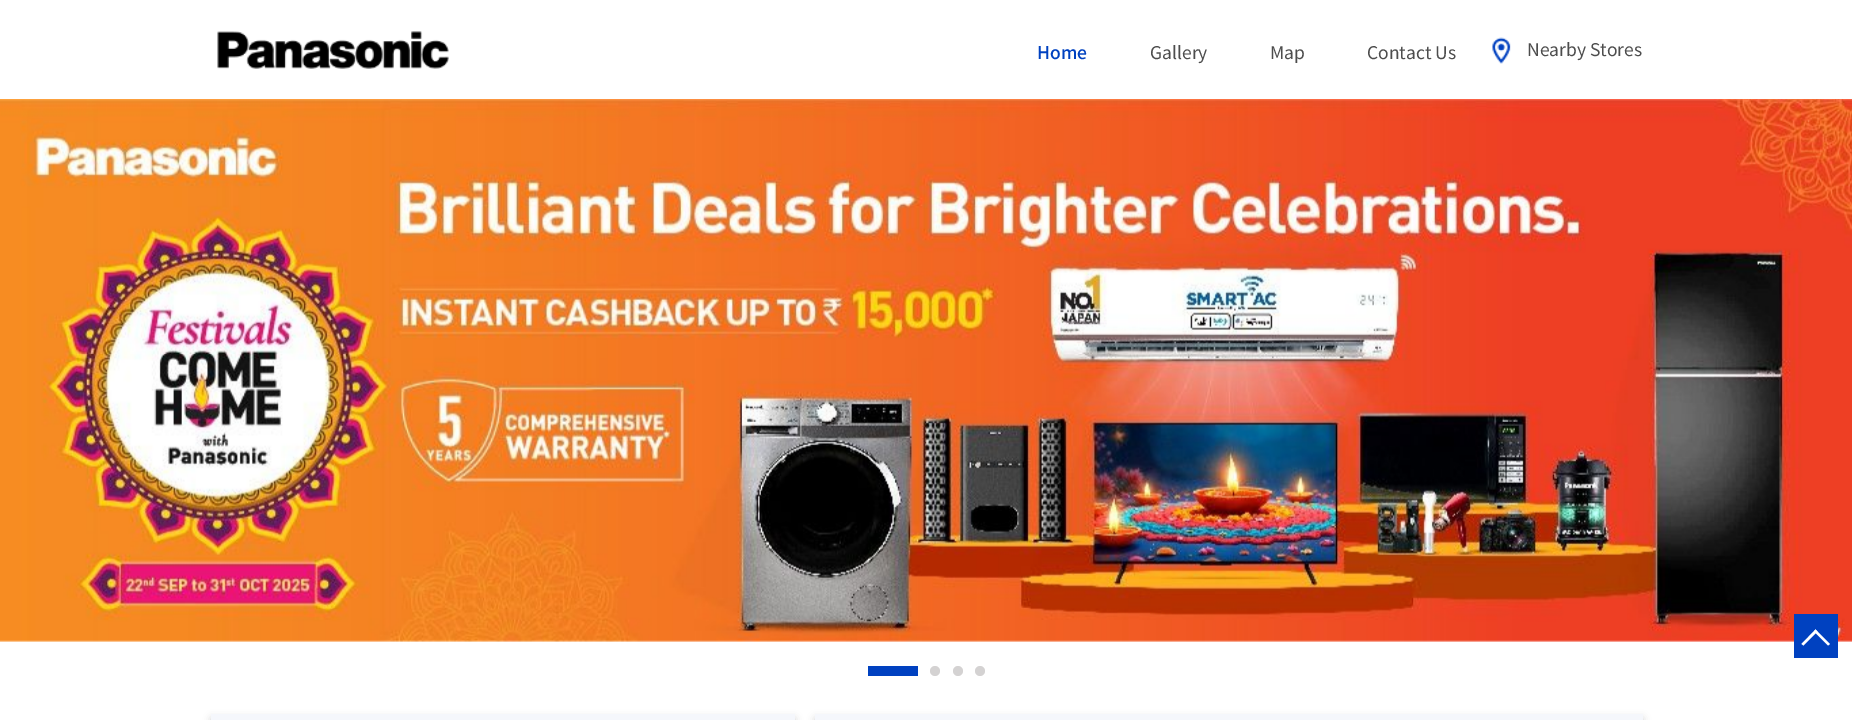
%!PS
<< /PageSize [1852 720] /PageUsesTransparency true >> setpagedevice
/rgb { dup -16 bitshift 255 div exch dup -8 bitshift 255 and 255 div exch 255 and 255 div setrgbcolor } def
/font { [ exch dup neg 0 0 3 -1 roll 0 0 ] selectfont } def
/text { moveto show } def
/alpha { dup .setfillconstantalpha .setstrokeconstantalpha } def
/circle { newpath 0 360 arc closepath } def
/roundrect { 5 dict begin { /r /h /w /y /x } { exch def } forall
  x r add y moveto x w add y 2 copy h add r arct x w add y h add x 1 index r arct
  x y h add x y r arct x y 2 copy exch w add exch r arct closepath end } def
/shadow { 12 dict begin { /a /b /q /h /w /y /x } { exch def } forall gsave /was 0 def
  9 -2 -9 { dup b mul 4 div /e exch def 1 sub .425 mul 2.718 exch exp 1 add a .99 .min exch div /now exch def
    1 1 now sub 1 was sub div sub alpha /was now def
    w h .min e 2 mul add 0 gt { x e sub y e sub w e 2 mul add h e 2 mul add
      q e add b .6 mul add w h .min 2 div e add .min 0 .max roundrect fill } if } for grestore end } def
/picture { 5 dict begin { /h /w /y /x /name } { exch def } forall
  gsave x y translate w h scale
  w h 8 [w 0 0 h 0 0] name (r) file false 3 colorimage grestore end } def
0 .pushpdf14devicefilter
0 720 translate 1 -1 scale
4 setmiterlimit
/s1 { /NotoSansJP-Medium 17.5 font 16#0041C0 rgb } def
/s2 { /NotoSansJP-Regular 17.5 font 16#4D4D4D rgb } def
16#FFFFFF rgb
0 0 1852 720 rectfill
(pic1.raw) 217 31 232 38 picture
s1
(Home) 1037 59 text
s2
(Gallery) 1150 59 text
(Map) 1270 59 text
(Contact Us) 1367 59 text
(pic2.raw) 1492 37 19 27 picture
(Nearby Stores) 1527 56 text
(pic3.raw) 0 99 1852 543 picture
16#0041C0 rgb
868 666 50 10 rectfill
16#D4D2D2 rgb
935 671 5 circle fill
958 671 5 circle fill
980 671 5 circle fill
16#000000 rgb
211 718 584 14 0 4 0.16 shadow
16#F5F7FC rgb
211 714 584 6 rectfill
16#000000 rgb
815 718 828 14 0 4 0.16 shadow
16#F5F7FC rgb
815 714 828 6 rectfill
16#0041C0 rgb
1794 614 44 44 rectfill
16#FFFFFF rgb
1803.5 645.5 moveto 1801.5 644 lineto 1815.5 629.5 lineto 1817.5 631.5 lineto closepath fill
1828 645.5 moveto 1814 631.5 lineto 1815.5 629.5 lineto 1830 644 lineto closepath fill
.poppdf14devicefilter showpage
